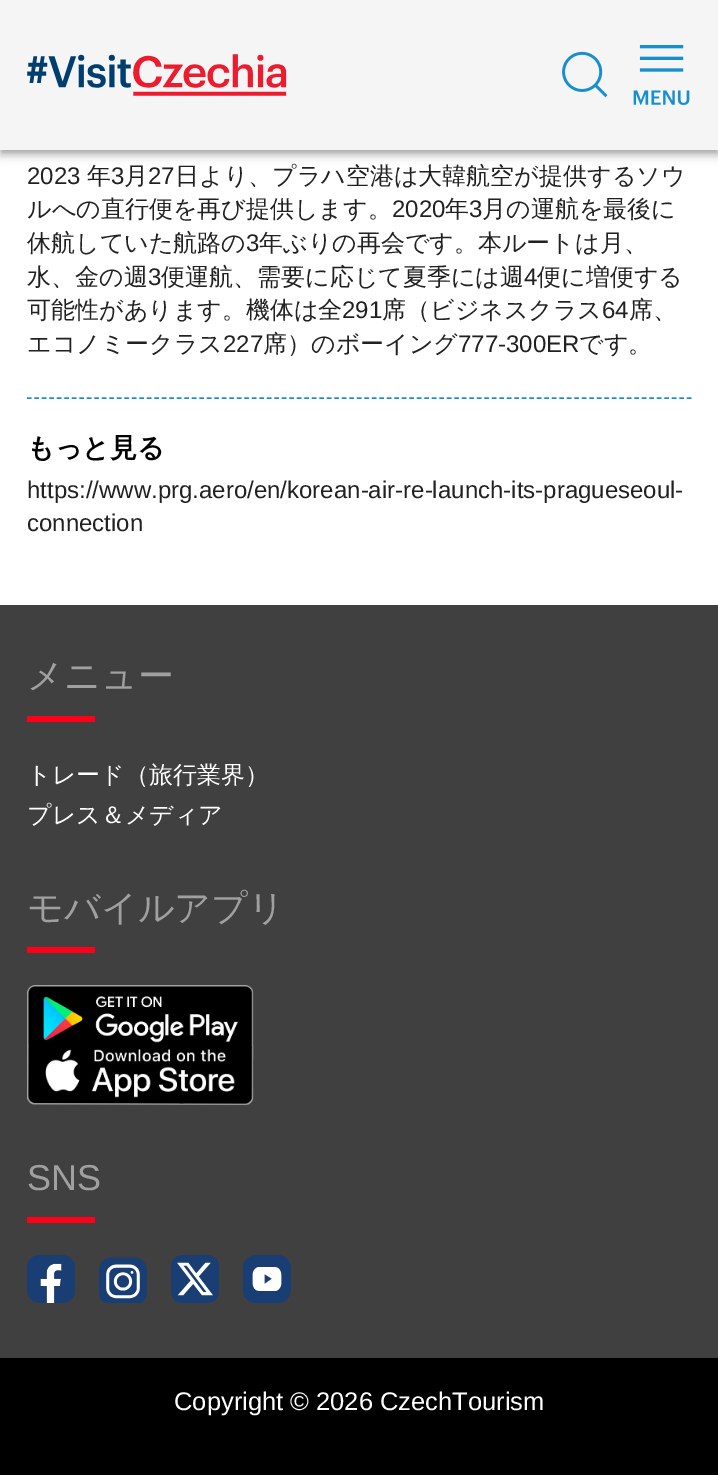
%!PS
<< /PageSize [718 1475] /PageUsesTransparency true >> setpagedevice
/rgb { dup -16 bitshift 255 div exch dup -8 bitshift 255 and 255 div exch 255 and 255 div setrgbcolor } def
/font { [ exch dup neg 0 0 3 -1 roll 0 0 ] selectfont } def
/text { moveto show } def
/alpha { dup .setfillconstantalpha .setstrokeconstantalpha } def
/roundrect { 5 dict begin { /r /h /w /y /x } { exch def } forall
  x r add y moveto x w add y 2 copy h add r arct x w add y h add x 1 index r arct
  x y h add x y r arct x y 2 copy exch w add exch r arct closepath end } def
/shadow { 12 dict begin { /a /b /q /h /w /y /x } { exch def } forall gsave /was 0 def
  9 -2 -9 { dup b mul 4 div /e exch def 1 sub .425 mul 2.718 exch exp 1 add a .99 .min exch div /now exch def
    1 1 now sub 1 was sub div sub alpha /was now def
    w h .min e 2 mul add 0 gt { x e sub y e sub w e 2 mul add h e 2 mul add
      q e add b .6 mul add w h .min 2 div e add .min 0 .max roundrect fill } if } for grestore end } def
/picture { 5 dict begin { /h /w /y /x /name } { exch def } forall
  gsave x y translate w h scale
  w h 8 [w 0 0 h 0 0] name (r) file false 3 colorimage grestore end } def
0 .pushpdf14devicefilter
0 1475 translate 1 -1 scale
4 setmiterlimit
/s1 { /LiberationSans-Regular 24 font 16#212121 rgb } def
/s2 { /WenQuanYiZenHei-Medium 24 font 16#212121 rgb } def
/s3 { /WenQuanYiZenHei-Bold 27 font 16#000000 rgb } def
/s4 { /WenQuanYiZenHei-Medium 36 font 16#A0A0A0 rgb } def
/s5 { /WenQuanYiZenHei-Medium 24 font 16#FFFFFF rgb } def
/s6 { /LiberationSans-Regular 36 font 16#A0A0A0 rgb } def
/s7 { /LiberationSans-Regular 25.5 font 16#FFFFFF rgb } def
16#FFFFFF rgb
0 0 718 1475 rectfill
16#000000 rgb
0 2 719 150 0 7.5 0.12 shadow
0 6 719 150 0 4 0.14 shadow
2 5 715 147 0 3 0.2 shadow
16#F5F5F5 rgb
0 0 718 150 rectfill
(pic1.raw) 27 54 260 42 picture
(pic2.raw) 562 51 46 47 picture
(pic3.raw) 633 45 57 60 picture
s1
(2023) 27 184 text
s2
(年) 87 184 text
s1
(3) 111 184 text
s2
(月) 124 184 text
s1
(27) 148 184 text
s2
(日より、プラハ空港は大韓航空が提供するソウ) 175 184 text
(ルへの直行便を再び提供します。) 27 217 text
s1
(2020) 392 217 text
s2
(年) 445 217 text
s1
(3) 469 217 text
s2
(月の運航を最後に) 482 217 text
(休航していた航路の) 27 251 text
s1
(3) 246 251 text
s2
(年ぶりの再会です。本ルートは月、) 259 251 text
(水、金の週) 27 285 text
s1
(3) 148 285 text
s2
(便運航、需要に応じて夏季には週) 161 285 text
s1
(4) 524 285 text
s2
(便に増便する) 537 285 text
(可能性があります。機体は全) 27 318 text
s1
(291) 342 318 text
s2
(席（ビジネスクラス) 382 318 text
s1
(64) 602 318 text
s2
(席、) 629 318 text
(エコノミークラス) 27 352 text
s1
(227) 223 352 text
s2
(席）のボーイング) 263 352 text
s1
(777-300ER) 458 352 text
s2
(です。) 579 352 text
16#178FCF rgb
1.5 setlinewidth
[4.5 3] 0 setdash
27 398 moveto 691.5 398 lineto stroke
s3
(もっと見る) 27 457 text
s1
(https://www.prg.aero/en/korean-air-re-launch-its-pragueseoul-) 27 498 text
(connection) 27 531 text
16#404040 rgb
0 605 718 753 rectfill
s4
(メニュー) 27 688 text
16#FF0018 rgb
27 716 68 6 rectfill
s5
(トレード（旅行業界）) 27 783 text
(プレス＆メディア) 27 823 text
s4
(モバイルアプリ) 27 920 text
16#FF0018 rgb
27 947 68 6 rectfill
(pic4.raw) 27 985 227 120 picture
s6
(SNS) 27 1190 text
16#FF0018 rgb
27 1217 68 6 rectfill
(pic5.raw) 27 1255 48 48 picture
(pic6.raw) 99 1257 48 46 picture
(pic7.raw) 171 1255 48 48 picture
(pic8.raw) 243 1255 48 48 picture
16#000000 rgb
0 1358 718 117 rectfill
s7
(Copyright © 2026 CzechTourism) 174 1410 text
.poppdf14devicefilter showpage
